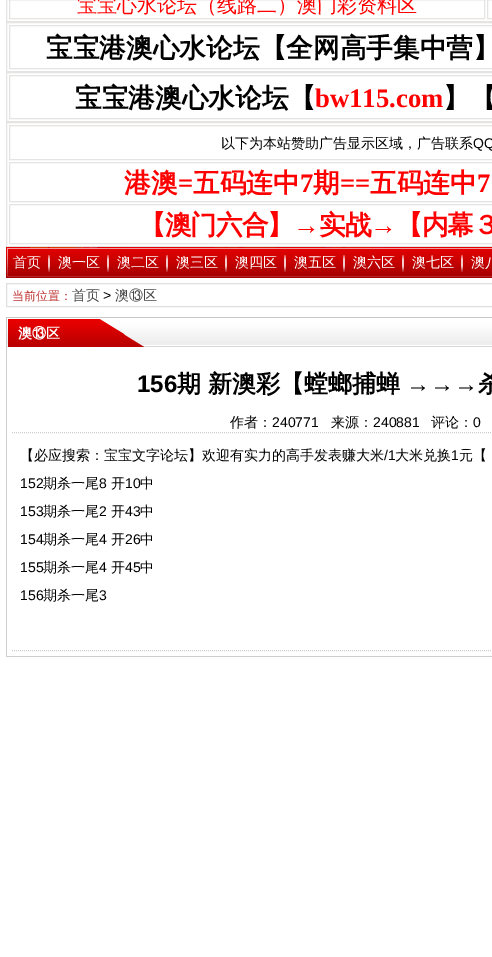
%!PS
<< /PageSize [492 957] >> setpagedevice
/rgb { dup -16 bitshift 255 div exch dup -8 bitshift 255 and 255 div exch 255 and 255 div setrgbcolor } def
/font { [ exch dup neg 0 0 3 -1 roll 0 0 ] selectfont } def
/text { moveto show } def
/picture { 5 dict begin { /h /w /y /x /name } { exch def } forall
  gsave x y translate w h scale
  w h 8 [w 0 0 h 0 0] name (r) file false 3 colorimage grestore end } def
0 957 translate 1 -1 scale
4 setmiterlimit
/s1 { /WenQuanYiZenHei-Medium 20 font 16#FF0000 rgb } def
/s2 { /WenQuanYiZenHei-Bold 26.7 font 16#000000 rgb } def
/s3 { /LiberationSerif-Bold 26.7 font 16#FF0000 rgb } def
/s4 { /WenQuanYiZenHei-Medium 14 font 16#000000 rgb } def
/s5 { /LiberationSans-Regular 14 font 16#000000 rgb } def
/s6 { /WenQuanYiZenHei-Bold 26.7 font 16#FF0000 rgb } def
/s7 { /WenQuanYiZenHei-Medium 14 font 16#FFFFFF rgb } def
/s8 { /WenQuanYiZenHei-Medium 12 font 16#BF3131 rgb } def
/s9 { /WenQuanYiZenHei-Medium 14 font 16#444444 rgb } def
/s10 { /WenQuanYiZenHei-Bold 14 font 16#FFFFFF rgb } def
/s11 { /LiberationSans-Bold 24 font 16#000000 rgb } def
/s12 { /WenQuanYiZenHei-Bold 24 font 16#000000 rgb } def
16#FFFFFF rgb
0 0 492 957 rectfill
16#E5E4E3 rgb
6.5 -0.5 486 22 rectstroke
9.5 -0.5 475 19 rectstroke
s1
(宝宝心水论坛（线路二）澳门彩资料区) 77 12 text
16#E5E4E3 rgb
487.5 -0.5 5 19 rectstroke
6.5 22.5 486 49 rectstroke
9.5 25.5 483 43 rectstroke
s2
(宝宝港澳心水论坛【全网高手集中营】) 46 57 text
16#E5E4E3 rgb
6.5 72.5 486 49 rectstroke
9.5 75.5 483 43 rectstroke
s2
(宝宝港澳心水论坛【) 75 107 text
s3
(bw115.com) 315 107 text
s2
(】【) 443 107 text
16#E5E4E3 rgb
6.5 122.5 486 124 rectstroke
9.5 125.5 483 34 rectstroke
s4
(以下为本站赞助广告显示区域，广告联系) 221 148 text
s5
(QQ) 473 148 text
16#E5E4E3 rgb
9.5 162.5 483 39 rectstroke
s6
(港澳) 124 192 text
s3
(=) 178 192 text
s6
(五码连中) 193 192 text
s3
(7) 300 192 text
s6
(期) 313 192 text
s3
(==) 340 192 text
s6
(五码连中) 370 192 text
s3
(7) 477 192 text
16#E5E4E3 rgb
9.5 204.5 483 39 rectstroke
/WenQuanYiZenHei-Bold 26.7 font
16#FF0000 rgb
139 234 moveto -1 0 (【澳门六合】) ashow
/LiberationSerif-Bold 26.7 font
293 234 moveto -1 0 (→) ashow
/WenQuanYiZenHei-Bold 26.7 font
319 234 moveto -1 0 (实战) ashow
/LiberationSerif-Bold 26.7 font
370 234 moveto -1 0 (→) ashow
/WenQuanYiZenHei-Bold 26.7 font
396 234 moveto -1 0 (【内幕３) ashow
(pic1.raw) 6 247 486 31 picture
s7
(首页) 13 267 text
(pic2.raw) 48 247 2 25 picture
(澳一区) 58 267 text
(pic3.raw) 107 255 2 17 picture
(澳二区) 117 267 text
(pic3.raw) 166 255 2 17 picture
(澳三区) 176 267 text
(pic2.raw) 225 247 2 25 picture
(澳四区) 235 267 text
(pic3.raw) 284 255 2 17 picture
(澳五区) 294 267 text
(pic2.raw) 343 247 2 25 picture
(澳六区) 353 267 text
(pic2.raw) 402 247 2 25 picture
(澳七区) 412 267 text
(pic3.raw) 461 255 2 17 picture
(澳八) 471 267 text
16#E0E0E0 rgb
6.5 283.5 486 23 rectstroke
s8
(当前位置：) 12 300 text
s9
(首页) 72 300 text
s5
(>) 103 300 text
s9
(澳⑬区) 115 300 text
(pic4.raw) 6 317 486 30 picture
s10
(澳⑬区) 18 338 text
16#CECECE rgb
6 656 486 1 rectfill
6 347 1 310 rectfill
16#CCCCCC rgb
[1 1] 0 setdash
12 432.5 moveto 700 432.5 lineto stroke
s11
(156) 137 392 text
s12
(期 新澳彩【螳螂捕蝉) 177 392 text
s11
(→→→) 406 392 text
s12
(杀) 478 392 text
s4
(作者：) 230 427 text
s5
(240771) 272 427 text
s4
(来源：) 331 427 text
s5
(240881) 373 427 text
s4
(评论：) 431 427 text
s5
(0) 473 427 text
16#CCCCCC rgb
12 650.5 moveto 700 650.5 lineto stroke
s4
(【必应搜索：宝宝文字论坛】欢迎有实力的高手发表赚大米) 20 460 text
s5
(/1) 384 460 text
s4
(大米兑换) 395 460 text
s5
(1) 451 460 text
s4
(元【) 459 460 text
s5
(152) 20 488 text
s4
(期杀一尾) 43 488 text
s5
(8) 99 488 text
s4
(开) 111 488 text
s5
(10) 125 488 text
s4
(中) 140 488 text
s5
(153) 20 516 text
s4
(期杀一尾) 43 516 text
s5
(2) 99 516 text
s4
(开) 111 516 text
s5
(43) 125 516 text
s4
(中) 140 516 text
s5
(154) 20 544 text
s4
(期杀一尾) 43 544 text
s5
(4) 99 544 text
s4
(开) 111 544 text
s5
(26) 125 544 text
s4
(中) 140 544 text
s5
(155) 20 572 text
s4
(期杀一尾) 43 572 text
s5
(4) 99 572 text
s4
(开) 111 572 text
s5
(45) 125 572 text
s4
(中) 140 572 text
s5
(156) 20 600 text
s4
(期杀一尾) 43 600 text
s5
(3) 99 600 text
showpage
